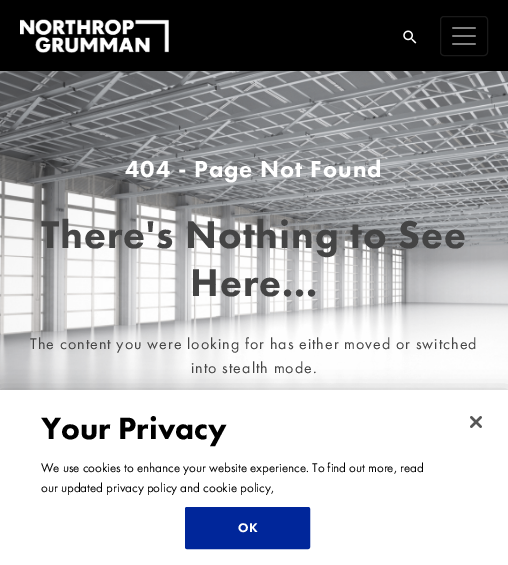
%!PS
<< /PageSize [508 565] /PageUsesTransparency true >> setpagedevice
/rgb { dup -16 bitshift 255 div exch dup -8 bitshift 255 and 255 div exch 255 and 255 div setrgbcolor } def
/font { [ exch dup neg 0 0 3 -1 roll 0 0 ] selectfont } def
/text { moveto show } def
/alpha { dup .setfillconstantalpha .setstrokeconstantalpha } def
/roundrect { 5 dict begin { /r /h /w /y /x } { exch def } forall
  x r add y moveto x w add y 2 copy h add r arct x w add y h add x 1 index r arct
  x y h add x y r arct x y 2 copy exch w add exch r arct closepath end } def
/shadow { 12 dict begin { /a /b /q /h /w /y /x } { exch def } forall gsave /was 0 def
  9 -2 -9 { dup b mul 4 div /e exch def 1 sub .425 mul 2.718 exch exp 1 add a .99 .min exch div /now exch def
    1 1 now sub 1 was sub div sub alpha /was now def
    w h .min e 2 mul add 0 gt { x e sub y e sub w e 2 mul add h e 2 mul add
      q e add b .6 mul add w h .min 2 div e add .min 0 .max roundrect fill } if } for grestore end } def
/picture { 5 dict begin { /h /w /y /x /name } { exch def } forall
  gsave x y translate w h scale
  w h 8 [w 0 0 h 0 0] name (r) file false 3 colorimage grestore end } def
0 .pushpdf14devicefilter
0 565 translate 1 -1 scale
4 setmiterlimit
/s1 { /FuturaPT-Black 32 font 16#000000 rgb } def
/s2 { /FuturaPT-Regular 13 font 16#000000 rgb } def
/s3 { /FuturaPT-Black 13 font 16#FFFFFF rgb } def
16#FFFFFF rgb
0 0 508 565 rectfill
16#000000 rgb
0 0 508 71 rectfill
(pic1.raw) 20 19 149 34 picture
(pic2.raw) 403 30 14 14 picture
16#1A1A1A rgb
440.5 16.5 47 39 3.5 roundrect stroke
(pic3.raw) 452 27 24 18 picture
(pic4.raw) 0 71 508 319 picture
/FuturaPT-Black 24 font
16#FFFFFF rgb
125 177 moveto 1 0 (404 - Page Not Found) ashow
/FuturaPT-Black 40 font
16#444444 rgb
41 248 moveto 1 0 (There's Nothing to See) ashow
190 296 moveto 1 0 (Here...) ashow
/FuturaPT-Regular 16 font
30 349 moveto 1 0 (The content you were looking for has either moved or switched) ashow
191 373 moveto 1 0 (into stealth mode.) ashow
16#000000 rgb
0 390 508 175 0 9 0.2 shadow
16#FFFFFF rgb
0 390 508 175 rectfill
s1
(Your Privacy) 41 439 text
s2
(We use cookies to enhance your website experience. To find out more, read) 41 472 text
(our updated privacy policy and cookie policy,) 41 492 text
16#00269A rgb
185.5 507.5 124 41 1.5 roundrect gsave fill grestore
stroke
s3
(OK) 238 532 text
(pic5.raw) 470 416 12 12 picture
.poppdf14devicefilter showpage
